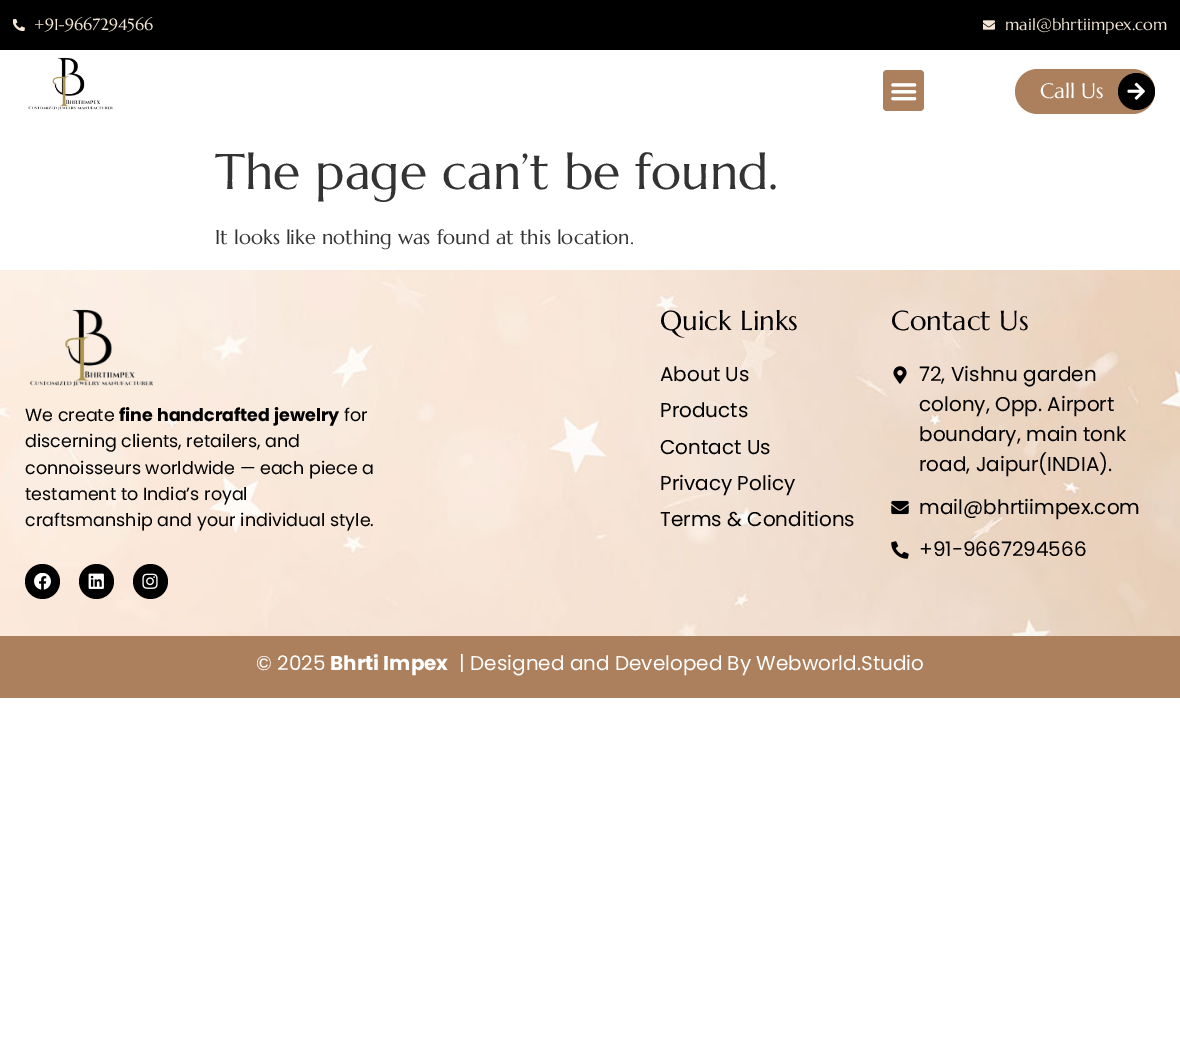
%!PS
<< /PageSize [1180 1038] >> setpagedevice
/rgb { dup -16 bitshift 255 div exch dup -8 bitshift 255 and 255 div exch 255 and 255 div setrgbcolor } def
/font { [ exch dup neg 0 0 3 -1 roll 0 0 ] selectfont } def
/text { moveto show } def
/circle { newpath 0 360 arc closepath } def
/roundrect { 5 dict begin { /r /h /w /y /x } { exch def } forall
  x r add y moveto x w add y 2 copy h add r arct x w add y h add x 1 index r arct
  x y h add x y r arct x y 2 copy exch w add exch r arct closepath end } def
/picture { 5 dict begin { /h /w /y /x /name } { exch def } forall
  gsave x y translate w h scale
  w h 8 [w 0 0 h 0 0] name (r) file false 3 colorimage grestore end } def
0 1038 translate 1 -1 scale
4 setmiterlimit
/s1 { /Marcellus-Regular 16.25 font 16#F5E7D6 rgb } def
/s2 { /Marcellus-Regular 21 font 16#FFFFFF rgb } def
/s3 { /Marcellus-Regular 50 font 16#333333 rgb } def
/s4 { /Marcellus-Regular 20 font 16#333333 rgb } def
/s5 { /Poppins-Regular 17.5 font 16#000000 rgb } def
/s6 { /Poppins-Bold 17.5 font 16#000000 rgb } def
/s7 { /Marcellus-Regular 27.5 font 16#000000 rgb } def
/s8 { /Poppins-Regular 20 font 16#000000 rgb } def
/s9 { /Poppins-Regular 20 font 16#FFFFFF rgb } def
/s10 { /Poppins-Bold 20 font 16#FFFFFF rgb } def
16#FFFFFF rgb
0 0 1180 1038 rectfill
16#000000 rgb
0 0 1180 50 rectfill
(pic1.raw) 13 19 12 12 picture
s1
(+91-9667294566) 34 30 text
(pic2.raw) 983 20 12 10 picture
(mail@bhrtiimpex.com) 1005 30 text
(pic3.raw) 28 57 85 53 picture
16#AC805D rgb
883 70 41 41 4 roundrect fill
(pic4.raw) 891 83 26 18 picture
1015 69 140 45 22.5 roundrect fill
s2
(Call Us) 1040 98 text
16#000000 rgb
1136.5 91.5 18.5 circle fill
(pic5.raw) 1127 82 18 18 picture
s3
(The page can’t be found.) 215 189 text
s4
(It looks like nothing was found at this location.) 215 244 text
(pic6.raw) 0 270 1180 366 picture
(pic7.raw) 30 309 123 78 picture
s5
(We create) 25 421 text
s6
(fine handcrafted jewelry) 119 421 text
s5
(for) 344 421 text
(discerning clients, retailers, and) 25 447 text
(connoisseurs worldwide — each piece a) 25 474 text
(testament to India’s royal) 25 500 text
(craftsmanship and your individual style.) 25 526 text
42.5 581.5 17.5 circle fill
(pic8.raw) 34 573 17 17 picture
96.5 581.5 17.5 circle fill
(pic9.raw) 88 573 16 16 picture
150.5 581.5 17.5 circle fill
(pic10.raw) 142 573 16 16 picture
s7
(Quick Links) 660 330 text
s8
(About Us) 660 381 text
(Products) 660 417 text
(Contact Us) 660 454 text
(Privacy Policy) 660 490 text
(Terms & Conditions) 660 526 text
s7
(Contact Us) 891 330 text
(pic11.raw) 893 366 14 18 picture
s8
(72, Vishnu garden) 919 381 text
(colony, Opp. Airport) 919 411 text
(boundary, main tonk) 919 441 text
(road, Jaipur\(INDIA\).) 919 471 text
(pic12.raw) 891 500 18 15 picture
(mail@bhrtiimpex.com) 919 514 text
(pic13.raw) 891 541 18 18 picture
(+91-9667294566) 919 556 text
16#AC805D rgb
0 636 1180 62 rectfill
s9
(© 2025) 256 670 text
s10
(Bhrti Impex) 330 670 text
s9
(| Designed and Developed By Webworld.Studio) 459 670 text
showpage
